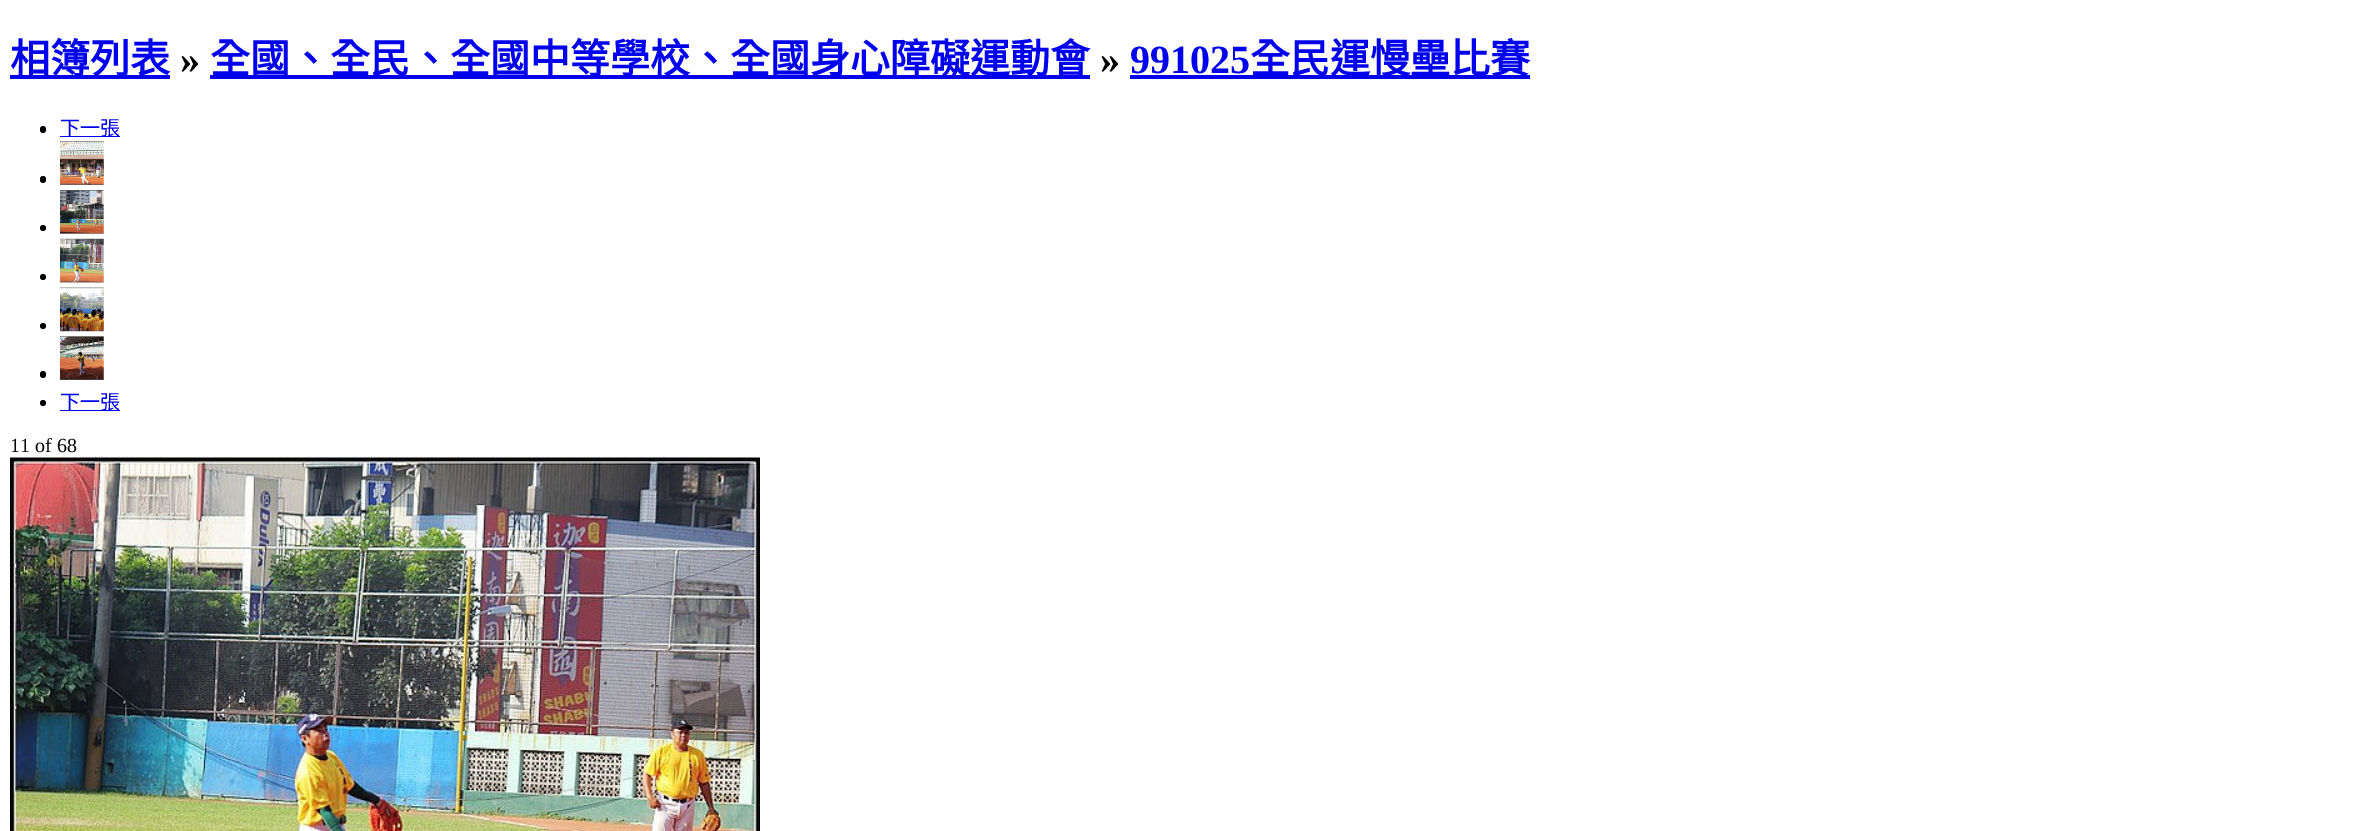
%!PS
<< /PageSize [2356 831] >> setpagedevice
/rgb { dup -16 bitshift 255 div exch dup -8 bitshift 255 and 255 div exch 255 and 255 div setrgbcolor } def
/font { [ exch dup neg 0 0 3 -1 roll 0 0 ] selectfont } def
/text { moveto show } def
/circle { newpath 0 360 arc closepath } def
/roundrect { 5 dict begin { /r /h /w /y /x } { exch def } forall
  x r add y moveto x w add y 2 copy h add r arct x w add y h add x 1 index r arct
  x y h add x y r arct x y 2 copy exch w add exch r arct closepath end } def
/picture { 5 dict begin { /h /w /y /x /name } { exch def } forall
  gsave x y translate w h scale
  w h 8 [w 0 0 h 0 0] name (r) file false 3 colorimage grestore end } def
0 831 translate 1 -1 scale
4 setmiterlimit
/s1 { /NotoSansCJKTC-Bold 40 font 16#0000EE rgb } def
/s2 { /LiberationSerif-Bold 40 font 16#000000 rgb } def
/s3 { /LiberationSerif-Bold 40 font 16#0000EE rgb } def
/s4 { /NotoSansCJKTC-Regular 20 font 16#0000EE rgb } def
/s5 { /LiberationSerif-Regular 20 font 16#000000 rgb } def
16#FFFFFF rgb
0 0 2356 831 rectfill
16#0000EE rgb
10 75 160 4 rectfill
s1
(相簿列表) 10 73 text
s2
(») 180 73 text
16#0000EE rgb
210 75 880 4 rectfill
s1
(全國、全民、全國中等學校、全國身心障礙運動會) 210 73 text
s2
(») 1100 73 text
s3
(991025) 1130 73 text
1130 75 400 4 rectfill
s1
(全民運慢壘比賽) 1250 73 text
16#000000 rgb
40 126 6 7 3 roundrect fill
16#0000EE rgb
60 136 60 1 rectfill
s4
(下一張) 60 135 text
16#000000 rgb
40 176 6 7 3 roundrect fill
(pic1.raw) 60 141 44 44 picture
43 228 3 circle fill
(pic2.raw) 60 190 44 44 picture
43 277 3 circle fill
(pic3.raw) 60 238 44 45 picture
43 326 3 circle fill
(pic4.raw) 60 287 44 45 picture
40 371 6 7 3 roundrect fill
(pic5.raw) 60 336 44 44 picture
43 403 3 circle fill
16#0000EE rgb
60 410 60 1 rectfill
(下一張) 60 409 text
s5
(11 of 68) 10 452 text
(pic6.raw) 10 457 750 374 picture
showpage
